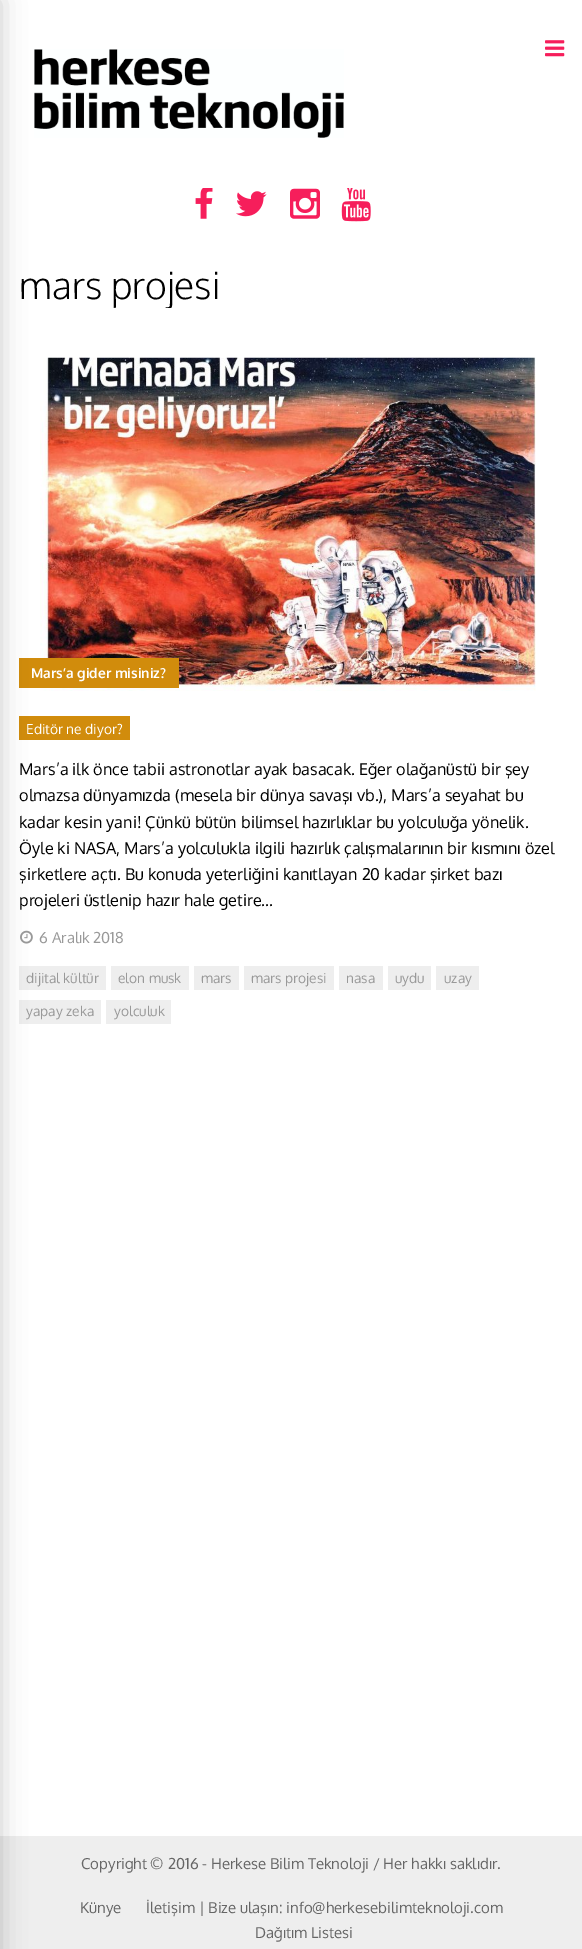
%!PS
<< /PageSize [582 1949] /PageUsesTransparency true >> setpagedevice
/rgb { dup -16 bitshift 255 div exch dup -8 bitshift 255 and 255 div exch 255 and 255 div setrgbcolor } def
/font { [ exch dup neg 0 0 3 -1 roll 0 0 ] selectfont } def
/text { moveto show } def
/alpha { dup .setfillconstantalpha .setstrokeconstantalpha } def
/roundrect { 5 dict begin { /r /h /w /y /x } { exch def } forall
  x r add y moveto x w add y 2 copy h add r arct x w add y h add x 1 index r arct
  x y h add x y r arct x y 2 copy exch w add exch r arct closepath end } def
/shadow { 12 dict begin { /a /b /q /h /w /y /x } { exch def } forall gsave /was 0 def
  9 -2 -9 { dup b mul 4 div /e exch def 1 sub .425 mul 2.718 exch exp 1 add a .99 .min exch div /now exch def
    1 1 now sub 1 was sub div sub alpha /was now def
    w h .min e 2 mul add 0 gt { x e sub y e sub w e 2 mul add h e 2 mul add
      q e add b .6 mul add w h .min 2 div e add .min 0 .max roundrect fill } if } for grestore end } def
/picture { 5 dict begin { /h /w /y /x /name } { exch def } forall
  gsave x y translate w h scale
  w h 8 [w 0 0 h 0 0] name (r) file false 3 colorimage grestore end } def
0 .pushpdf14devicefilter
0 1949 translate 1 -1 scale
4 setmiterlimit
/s1 { /Oxygen-Light 37.5 font 16#000000 rgb } def
/s2 { /Oxygen-Bold 13.75 font 16#FFFFFF rgb } def
/s3 { /Oxygen-Regular 13.75 font 16#FFFFFF rgb } def
/s4 { /Oxygen-Regular 16.25 font 16#000000 rgb } def
/s5 { /Oxygen-Regular 15 font 16#999999 rgb } def
/s6 { /Oxygen-Regular 13.75 font 16#999999 rgb } def
/s7 { /Oxygen-Regular 15 font 16#666666 rgb } def
16#FFFFFF rgb
0 0 582 1949 rectfill
(pic1.raw) 34 49 310 89 picture
(pic7.raw) 40 357 496 334 picture
16#D18C0C rgb
19 658 160 30 rectfill
19 716 111 24 rectfill
(pic8.raw) 20 930 13 14 picture
16#EEEEEE rgb
19 966 87 24 rectfill
19 1000 82 24 rectfill
0 1836 582 113 rectfill
16#000000 rgb
-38 0 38 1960 0 12.5 0.2 shadow
(pic2.raw) 545 40 20 17 picture
(pic3.raw) 195 188 18 31 picture
(pic4.raw) 236 191 31 26 picture
(pic5.raw) 290 188 30 31 picture
(pic6.raw) 341 188 30 34 picture
gsave
19 260 545 48 rectclip
s1
(mars projesi) 19 299 text
grestore
s2
(Mars’a gider misiniz?) 31 678 text
s3
(Editör ne diyor?) 26 734 text
s4
(Mars’a ilk önce tabii astronotlar ayak basacak. Eğer olağanüstü bir şey) 19 775 text
(olmazsa dünyamızda \(mesela bir dünya savaşı vb.\), Mars’a seyahat bu) 19 801 text
(kadar kesin yani! Çünkü bütün bilimsel hazırlıklar bu yolculuğa yönelik.) 19 828 text
(Öyle ki NASA, Mars’a yolculukla ilgili hazırlık çalışmalarının bir kısmını özel) 19 854 text
(şirketlere açtı. Bu konuda yeterliğini kanıtlayan 20 kadar şirket bazı) 19 880 text
(projeleri üstlenip hazır hale getire...) 19 906 text
s5
(6 Aralık 2018) 39 943 text
s6
(dijital kültür) 26 983 text
16#EEEEEE rgb
111 966 78 24 rectfill
s6
(elon musk) 118 983 text
16#EEEEEE rgb
194 966 45 24 rectfill
s6
(mars) 201 983 text
16#EEEEEE rgb
244 966 90 24 rectfill
s6
(mars projesi) 251 983 text
16#EEEEEE rgb
339 966 44 24 rectfill
s6
(nasa) 346 983 text
16#EEEEEE rgb
388 966 43 24 rectfill
s6
(uydu) 395 983 text
16#EEEEEE rgb
436 966 43 24 rectfill
s6
(uzay) 444 983 text
(yapay zeka) 26 1016 text
16#EEEEEE rgb
106 1000 65 24 rectfill
s6
(yolculuk) 114 1016 text
s7
(Copyright © 2016 - Herkese Bilim Teknoloji / Her hakkı saklıdır.) 81 1869 text
(Künye) 80 1913 text
(İletişim | Bize ulaşın: info@herkesebilimteknoloji.com) 146 1913 text
(Dağıtım Listesi) 255 1938 text
.poppdf14devicefilter showpage
